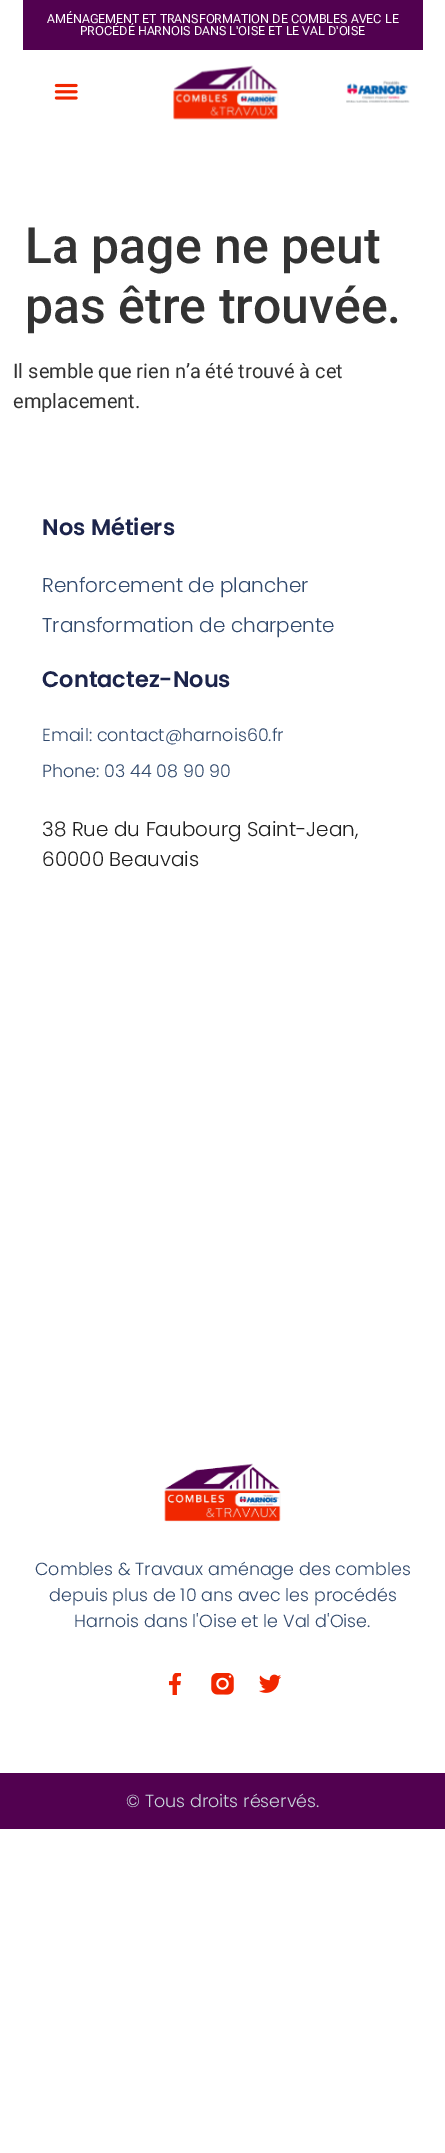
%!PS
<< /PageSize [445 2153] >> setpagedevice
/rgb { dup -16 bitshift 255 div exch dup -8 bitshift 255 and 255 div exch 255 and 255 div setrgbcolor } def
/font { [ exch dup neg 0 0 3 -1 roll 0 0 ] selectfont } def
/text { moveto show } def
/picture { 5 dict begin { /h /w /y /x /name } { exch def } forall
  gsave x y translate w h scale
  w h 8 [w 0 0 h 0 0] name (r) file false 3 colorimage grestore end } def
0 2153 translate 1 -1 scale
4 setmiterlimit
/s1 { /RobotoFlex-Regular 12.5 font 16#FFFFFF rgb } def
/s2 { /Roboto-Medium 50 font 16#333333 rgb } def
/s3 { /Roboto-Regular 20 font 16#333333 rgb } def
/s4 { /Poppins-SemiBold 22.5 font 16#1C244B rgb } def
/s5 { /Poppins-Light 20 font 16#324A6D rgb } def
/s6 { /Poppins-Light 17.5 font 16#324A6D rgb } def
/s7 { /Poppins-Light 20 font 16#202020 rgb } def
/s8 { /Poppins-Light 17.5 font 16#C8D5DC rgb } def
16#FFFFFF rgb
0 0 445 2153 rectfill
16#520150 rgb
23 0 400 50 rectfill
s1
(AMÉNAGEMENT ET TRANSFORMATION DE COMBLES AVEC LE) 47 23 text
(PROCÉDÉ HARNOIS DANS L'OISE ET LE VAL D'OISE) 80 35 text
(pic1.raw) 54 83 24 17 picture
(pic2.raw) 173 65 106 55 picture
(pic3.raw) 346 80 64 23 picture
s2
(La page ne peut) 25 263 text
(pas être trouvée.) 25 323 text
s3
(Il semble que rien n’a été trouvé à cet) 13 378 text
(emplacement.) 13 408 text
s4
(Nos Métiers) 42 535 text
s5
(Renforcement de plancher) 42 592 text
(Transformation de charpente) 42 632 text
s4
(Contactez-Nous) 42 687 text
s6
(Email: contact@harnois60.fr) 42 741 text
(Phone: 03 44 08 90 90) 42 777 text
s7
(38 Rue du Faubourg Saint-Jean,) 42 836 text
(60000 Beauvais) 42 866 text
(pic4.raw) 164 1463 117 59 picture
s6
(Combles & Travaux aménage des combles) 35 1575 text
(depuis plus de 10 ans avec les procédés) 49 1601 text
(Harnois dans l'Oise et le Val d'Oise.) 74 1627 text
(pic5.raw) 168 1673 14 22 picture
(pic6.raw) 211 1673 23 22 picture
(pic7.raw) 259 1674 22 19 picture
16#520150 rgb
0 1773 445 56 rectfill
s8
(© Tous droits réservés.) 126 1807 text
showpage
